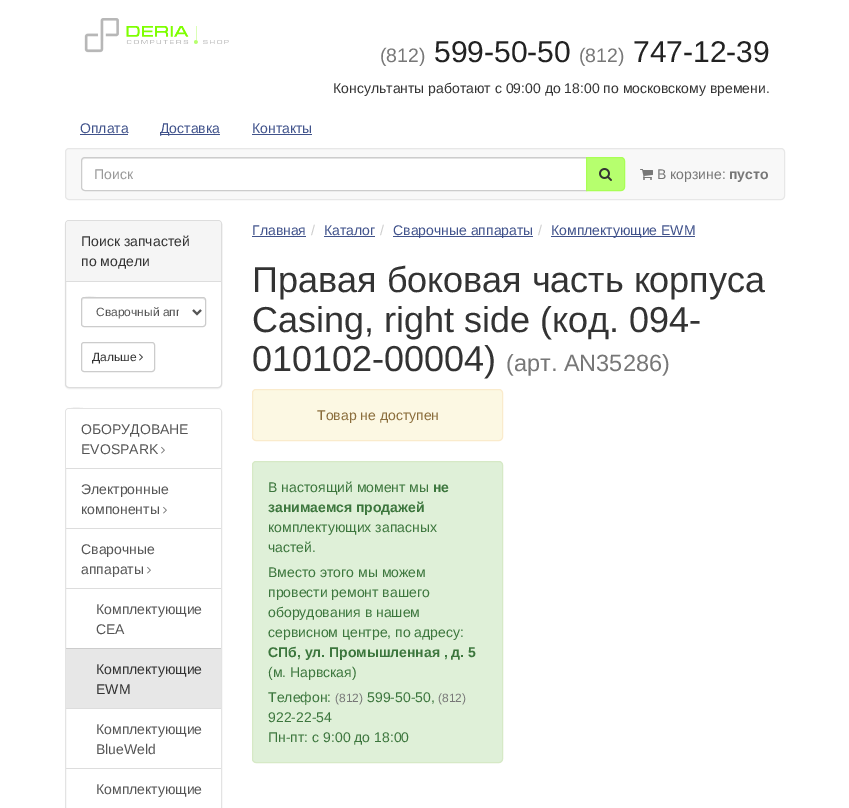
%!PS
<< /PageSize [849 808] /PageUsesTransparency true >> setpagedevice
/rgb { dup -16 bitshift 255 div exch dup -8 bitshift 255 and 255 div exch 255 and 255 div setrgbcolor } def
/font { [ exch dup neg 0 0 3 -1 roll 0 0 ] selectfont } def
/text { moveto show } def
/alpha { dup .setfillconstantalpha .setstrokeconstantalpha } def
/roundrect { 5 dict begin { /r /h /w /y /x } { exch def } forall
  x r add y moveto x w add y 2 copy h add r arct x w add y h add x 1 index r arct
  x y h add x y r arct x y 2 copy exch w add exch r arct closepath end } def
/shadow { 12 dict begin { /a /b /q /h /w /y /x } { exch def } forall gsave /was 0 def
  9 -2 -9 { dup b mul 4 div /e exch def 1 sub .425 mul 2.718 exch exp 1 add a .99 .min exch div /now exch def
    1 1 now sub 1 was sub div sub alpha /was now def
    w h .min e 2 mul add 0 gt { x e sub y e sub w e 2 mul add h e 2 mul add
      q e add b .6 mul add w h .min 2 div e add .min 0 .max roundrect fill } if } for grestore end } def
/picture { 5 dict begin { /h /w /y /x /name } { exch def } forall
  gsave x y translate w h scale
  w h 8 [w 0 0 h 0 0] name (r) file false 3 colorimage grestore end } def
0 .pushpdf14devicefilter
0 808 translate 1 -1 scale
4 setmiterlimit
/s1 { /LiberationSans-Regular 19.5 font 16#777777 rgb } def
/s2 { /LiberationSans-Regular 30 font 16#222222 rgb } def
/s3 { /LiberationSans-Regular 14 font 16#333333 rgb } def
/s4 { /LiberationSans-Regular 14 font 16#40528B rgb } def
/s5 { /LiberationSans-Regular 14 font 16#999999 rgb } def
/s6 { /LiberationSans-Regular 14 font 16#777777 rgb } def
/s7 { /LiberationSans-Bold 14 font 16#777777 rgb } def
/s8 { /LiberationSans-Regular 12 font 16#555555 rgb } def
/s9 { /LiberationSans-Regular 12 font 16#333333 rgb } def
/s10 { /LiberationSans-Regular 14 font 16#555555 rgb } def
/s11 { /LiberationSans-Regular 14 font 16#CCCCCC rgb } def
/s12 { /LiberationSans-Regular 36 font 16#333333 rgb } def
/s13 { /LiberationSans-Regular 23.5 font 16#777777 rgb } def
/s14 { /LiberationSans-Regular 14 font 16#8A6D3B rgb } def
/s15 { /LiberationSans-Regular 14 font 16#3C763D rgb } def
/s16 { /LiberationSans-Bold 14 font 16#3C763D rgb } def
/s17 { /LiberationSans-Regular 12 font 16#777777 rgb } def
16#FFFFFF rgb
0 0 849 808 rectfill
(pic1.raw) 84 18 145 35 picture
s1
(\(812\)) 380 62 text
s2
(599-50-50) 434 62 text
s1
(\(812\)) 579 62 text
s2
(747-12-39) 633 62 text
s3
(Консультанты работают с 09:00 до 18:00 по московскому времени.) 333 93 text
s4
(Оплата) 80 133 text
80 134 48 1 rectfill
160 134 60 1 rectfill
(Доставка) 160 133 text
(Контакты) 252 133 text
252 134 60 1 rectfill
16#F8F8F8 rgb
65.5 148.5 719 51 3.5 roundrect gsave fill grestore
16#E7E7E7 rgb
stroke
16#FFFFFF rgb
85 157 moveto 587 157 lineto 587 191 lineto 85 191 lineto 83 191 81 189 81 187 curveto 81 161 lineto 81 159 83 157 85 157 curveto closepath fill
16#ECECEC rgb
85 159 moveto 586 159 lineto 586 158 lineto 85 158 lineto 83 158 82 160 82 162 curveto 82 160 83 159 85 159 curveto closepath fill
16#CCCCCC rgb
85 157.5 moveto 586.5 157.5 lineto 586.5 190.5 lineto 85 190.5 lineto 83 190.5 81.5 189 81.5 187 curveto 81.5 161 lineto 81.5 159 83 157.5 85 157.5 curveto closepath stroke
s5
(Поиск) 94 179 text
16#B6FF6E rgb
586.5 157.5 moveto 621 157.5 lineto 623 157.5 624.5 159 624.5 161 curveto 624.5 187 lineto 624.5 189 623 190.5 621 190.5 curveto 586.5 190.5 lineto closepath gsave fill grestore
16#A9FF55 rgb
stroke
(pic2.raw) 599 168 13 13 picture
(pic3.raw) 640 169 13 11 picture
s6
(В корзине:) 657 179 text
s7
(пусто) 729 179 text
16#000000 rgb
65 221 157 168 4 0.5 0.05 shadow
16#FFFFFF rgb
65.5 220.5 156 167 3.5 roundrect gsave fill grestore
16#DDDDDD rgb
stroke
16#F5F5F5 rgb
69 221 moveto 218 221 lineto 219.5 221 221 222.5 221 224 curveto 221 282 lineto 66 282 lineto 66 224 lineto 66 222.5 67.5 221 69 221 curveto closepath fill
16#DDDDDD rgb
66 281 155 1 rectfill
s3
(Поиск запчастей) 81 246 text
(по модели) 81 266 text
16#ECECEC rgb
84 299 moveto 203 299 lineto 205 300 lineto 205 301 lineto 205 300 205 299 204 298 curveto 104 298 lineto 98 298 82 293 82 301 curveto 82 300 83 299 84 299 curveto closepath fill
16#CCCCCC rgb
81.5 297.5 124 29 2.5 roundrect stroke
16#555555 rgb
2 setlinewidth
193 310 moveto 197 314 lineto 201 310 lineto stroke
gsave
96 304 83 16 rectclip
s8
(Сварочный апп) 96 316 text
grestore
16#CCCCCC rgb
1 setlinewidth
81.5 342.5 73 29 2.5 roundrect stroke
s9
(Дальше) 92 361 text
(pic4.raw) 139 353 4 8 picture
16#E9E9E9 rgb
69 410 moveto 218 410 lineto 220 410 221 411 221 413 curveto 221 411 221 410 219 409 curveto 94 409 lineto 86 409 66 404 66 413 curveto 66 411 67 410 69 410 curveto closepath fill
16#E3E3E3 rgb
65.5 408.5 156 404 3.5 roundrect stroke
16#FFFFFF rgb
69 409 moveto 218 409 lineto 219.5 409 221 410.5 221 412 curveto 221 469 lineto 66 469 lineto 66 412 lineto 66 410.5 67.5 409 69 409 curveto closepath fill
s10
(ОБОРУДОВАНЕ) 81 434 text
(EVOSPARK) 81 454 text
(pic5.raw) 161 446 4 8 picture
16#DDDDDD rgb
66 468 155 1 rectfill
s10
(Электронные) 81 494 text
(компоненты) 81 514 text
(pic5.raw) 163 506 4 8 picture
16#DDDDDD rgb
66 528 155 1 rectfill
s10
(Сварочные) 81 554 text
(аппараты) 81 574 text
(pic5.raw) 147 566 4 8 picture
16#DDDDDD rgb
66 588 155 1 rectfill
s10
(Комплектующие) 96 614 text
(CEA) 96 634 text
16#E7E7E7 rgb
66 649 155 59 rectfill
16#CCCCCC rgb
66 648 155 1 rectfill
s3
(Комплектующие) 96 674 text
(EWM) 96 694 text
16#DDDDDD rgb
66 708 155 1 rectfill
s10
(Комплектующие) 96 734 text
(BlueWeld) 96 754 text
16#DDDDDD rgb
66 768 155 1 rectfill
s10
(Комплектующие) 96 794 text
s4
(Главная) 252 235 text
252 236 54 1 rectfill
s11
(/) 311 235 text
s4
(Каталог) 324 235 text
324 236 51 1 rectfill
s11
(/) 380 235 text
16#40528B rgb
393 236 140 1 rectfill
(Сварочные аппараты) 393 235 text
s11
(/) 538 235 text
16#40528B rgb
551 236 144 1 rectfill
(Комплектующие EWM) 551 235 text
s12
(Правая боковая часть корпуса) 252 292 text
(Casing, right side \(код. 094-) 252 332 text
(010102-00004\)) 252 371 text
s13
(\(арт. AN35286\)) 506 371 text
16#FCF8E3 rgb
252.5 389.5 250 51 3.5 roundrect gsave fill grestore
16#FAEBCC rgb
stroke
s14
(Товар не доступен) 317 420 text
16#DFF0D8 rgb
252.5 461.5 250 301 3.5 roundrect gsave fill grestore
16#D6E9C6 rgb
stroke
s15
(В настоящий момент мы) 268 492 text
s16
(не) 433 492 text
(занимаемся продажей) 268 512 text
s15
(комплектующих запасных) 268 532 text
(частей.) 268 552 text
(Вместо этого мы можем) 268 577 text
(провести ремонт вашего) 268 597 text
(оборудования в нашем) 268 617 text
(сервисном центре, по адресу:) 268 637 text
s16
(СПб, ул. Промышленная , д. 5) 268 657 text
s15
(\(м. Нарвская\)) 268 677 text
(Телефон:) 268 702 text
s17
(\(812\)) 335 702 text
s15
(599-50-50,) 367 702 text
s17
(\(812\)) 438 702 text
s15
(922-22-54) 268 722 text
(Пн-пт: с 9:00 до 18:00) 268 742 text
.poppdf14devicefilter showpage
